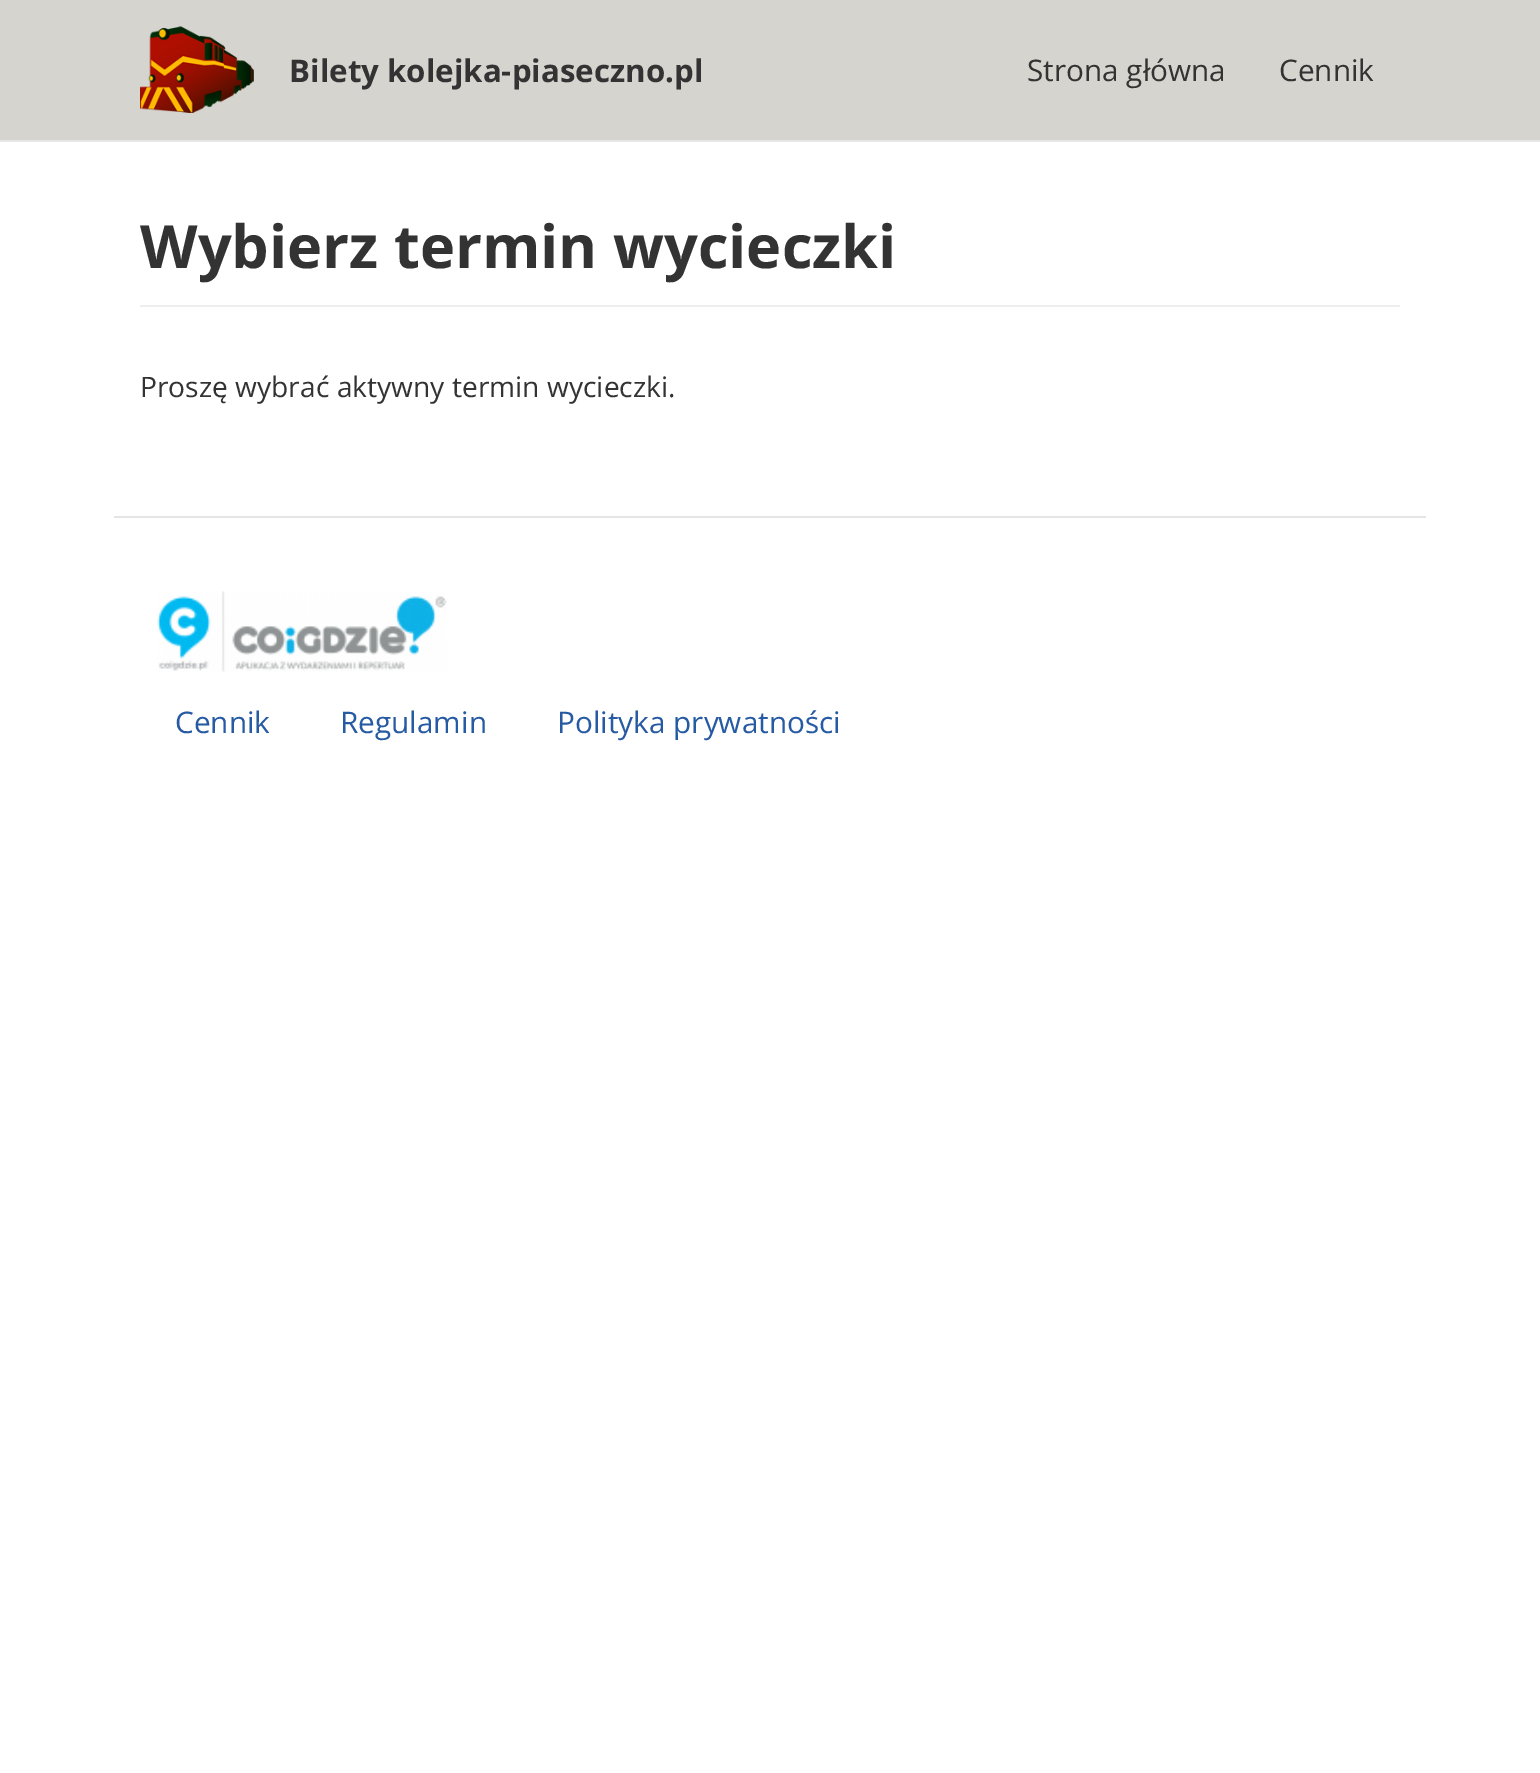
%!PS
<< /PageSize [1540 1773] >> setpagedevice
/rgb { dup -16 bitshift 255 div exch dup -8 bitshift 255 and 255 div exch 255 and 255 div setrgbcolor } def
/font { [ exch dup neg 0 0 3 -1 roll 0 0 ] selectfont } def
/text { moveto show } def
/picture { 5 dict begin { /h /w /y /x /name } { exch def } forall
  gsave x y translate w h scale
  w h 8 [w 0 0 h 0 0] name (r) file false 3 colorimage grestore end } def
0 1773 translate 1 -1 scale
4 setmiterlimit
/s1 { /OpenSans-Bold 31.25 font 16#333333 rgb } def
/s2 { /OpenSans-Regular 29.75 font 16#333333 rgb } def
/s3 { /OpenSans-Bold 59.5 font 16#333333 rgb } def
/s4 { /OpenSans-Regular 28.2 font 16#333333 rgb } def
/s5 { /OpenSans-Regular 29.75 font 16#265AA3 rgb } def
16#FFFFFF rgb
0 0 1540 1773 rectfill
16#D5D4CF rgb
0 0 1540 140 rectfill
16#E7E7E7 rgb
0 140 1540 2 rectfill
(pic1.raw) 140 26 114 87 picture
s1
(Bilety kolejka-piaseczno.pl) 289 82 text
s2
(Strona główna) 1027 81 text
(Cennik) 1279 81 text
16#EEEEEE rgb
140 305 1260 2 rectfill
s3
(Wybierz termin wycieczki) 140 268 text
s4
(Proszę wybrać aktywny termin wycieczki.) 140 397 text
16#E5E5E5 rgb
114 516 1312 2 rectfill
(pic2.raw) 157 591 290 81 picture
s5
(Cennik) 175 733 text
(Regulamin) 340 733 text
(Polityka prywatności) 557 733 text
showpage
